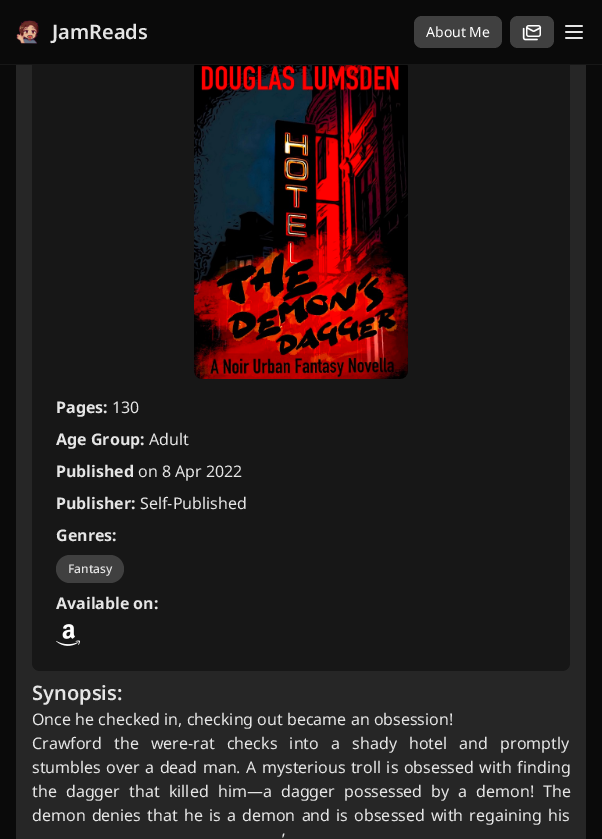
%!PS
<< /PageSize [602 839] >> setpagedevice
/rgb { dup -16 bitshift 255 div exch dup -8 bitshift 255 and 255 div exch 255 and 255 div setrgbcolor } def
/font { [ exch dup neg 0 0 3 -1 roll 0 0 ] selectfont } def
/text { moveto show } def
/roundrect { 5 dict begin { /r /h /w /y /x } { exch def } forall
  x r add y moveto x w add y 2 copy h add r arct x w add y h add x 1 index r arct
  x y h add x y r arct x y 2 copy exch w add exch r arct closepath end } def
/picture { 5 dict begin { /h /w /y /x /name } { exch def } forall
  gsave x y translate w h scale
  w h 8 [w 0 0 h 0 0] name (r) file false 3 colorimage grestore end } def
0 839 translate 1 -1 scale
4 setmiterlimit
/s1 { /NotoSans-SemiBold 20 font 16#E5E5E5 rgb } def
/s2 { /NotoSans-Regular 14 font 16#FFFFFF rgb } def
/s3 { /NotoSans-Bold 16 font 16#E5E5E5 rgb } def
/s4 { /NotoSans-Regular 16 font 16#E5E5E5 rgb } def
/s5 { /NotoSans-Medium 12 font 16#E5E5E5 rgb } def
16#0A0A0A rgb
0 0 602 839 rectfill
16#262626 rgb
16 65 570 774 rectfill
16#171717 rgb
32 43 538 628 8 roundrect fill
16#0A0A0A rgb
32 43 538 21 rectfill
16#171717 rgb
0 64 602 1 rectfill
(pic1.raw) 16 20 23 24 picture
s1
(JamReads) 52 39 text
16#404040 rgb
414 16 88 32 8 roundrect fill
s2
(About Me) 426 37 text
16#404040 rgb
510 16 44 32 8 roundrect fill
(pic2.raw) 522 25 20 16 picture
(pic3.raw) 565 25 18 14 picture
(pic4.raw) 194 65 214 314 picture
s3
(Pages:) 56 413 text
s4
(130) 112 413 text
s3
(Age Group:) 56 445 text
s4
(Adult) 149 445 text
s3
(Published) 56 477 text
s4
(on 8 Apr 2022) 138 477 text
s3
(Publisher:) 56 509 text
s4
(Self-Published) 140 509 text
s3
(Genres:) 56 541 text
16#404040 rgb
56 555 68 28 14 roundrect fill
s5
(Fantasy) 68 573 text
s3
(Available on:) 56 609 text
(pic5.raw) 56 624 24 22 picture
s1
(Synopsis:) 32 700 text
s4
(Once he checked in, checking out became an obsession!) 32 725 text
32 749 moveto 8 0 32 (Crawford the were-rat checks into a shady hotel and promptly) widthshow
32 773 moveto 1.25 0 32 (stumbles over a dead man. A mysterious troll is obsessed with finding) widthshow
32 797 moveto 5 0 32 (the dagger that killed him—a dagger possessed by a demon! The) widthshow
32 821 moveto 2 0 32 (demon denies that he is a demon and is obsessed with regaining his) widthshow
282 845 moveto 6 0 32 (’) widthshow
showpage
